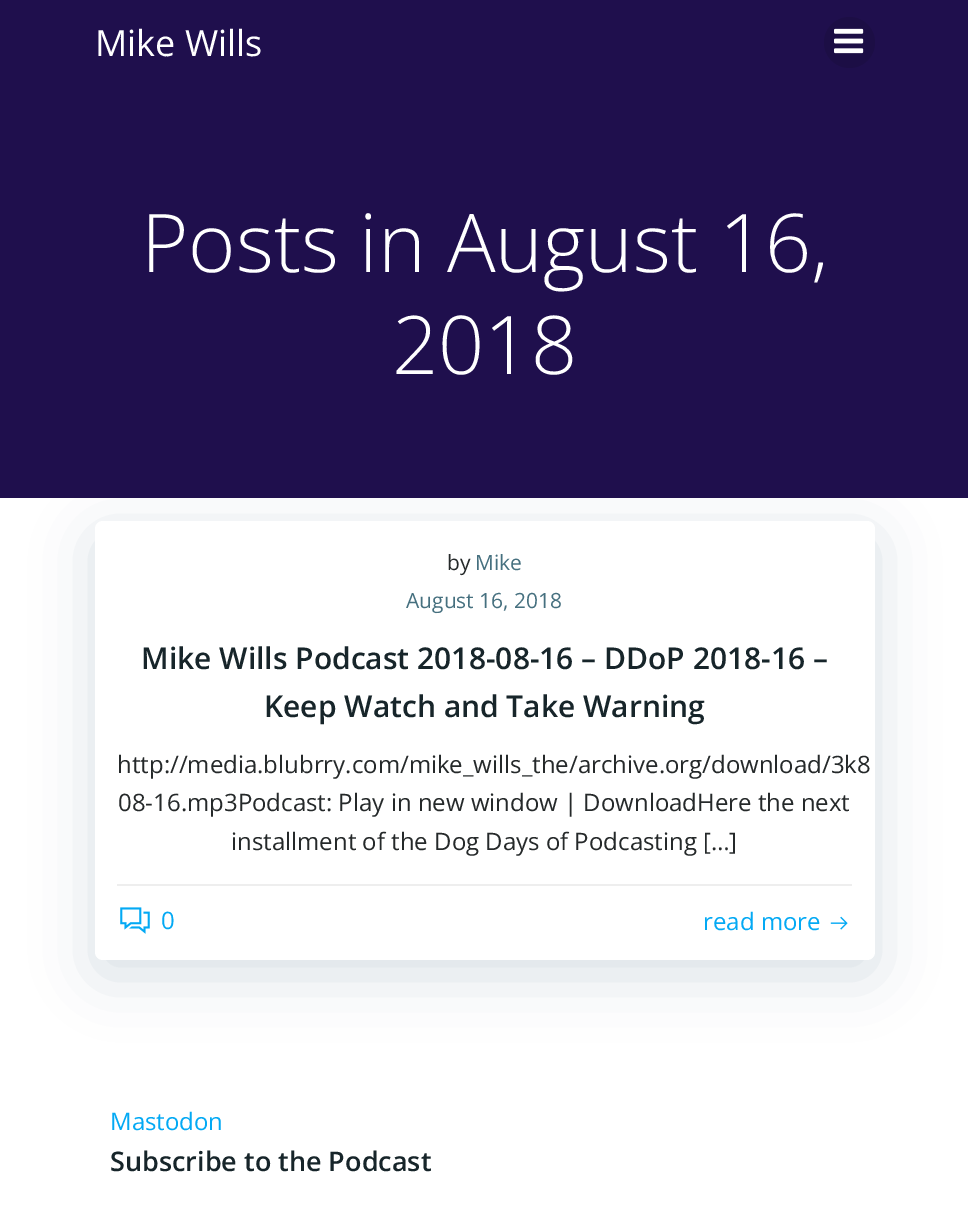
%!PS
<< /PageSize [968 1210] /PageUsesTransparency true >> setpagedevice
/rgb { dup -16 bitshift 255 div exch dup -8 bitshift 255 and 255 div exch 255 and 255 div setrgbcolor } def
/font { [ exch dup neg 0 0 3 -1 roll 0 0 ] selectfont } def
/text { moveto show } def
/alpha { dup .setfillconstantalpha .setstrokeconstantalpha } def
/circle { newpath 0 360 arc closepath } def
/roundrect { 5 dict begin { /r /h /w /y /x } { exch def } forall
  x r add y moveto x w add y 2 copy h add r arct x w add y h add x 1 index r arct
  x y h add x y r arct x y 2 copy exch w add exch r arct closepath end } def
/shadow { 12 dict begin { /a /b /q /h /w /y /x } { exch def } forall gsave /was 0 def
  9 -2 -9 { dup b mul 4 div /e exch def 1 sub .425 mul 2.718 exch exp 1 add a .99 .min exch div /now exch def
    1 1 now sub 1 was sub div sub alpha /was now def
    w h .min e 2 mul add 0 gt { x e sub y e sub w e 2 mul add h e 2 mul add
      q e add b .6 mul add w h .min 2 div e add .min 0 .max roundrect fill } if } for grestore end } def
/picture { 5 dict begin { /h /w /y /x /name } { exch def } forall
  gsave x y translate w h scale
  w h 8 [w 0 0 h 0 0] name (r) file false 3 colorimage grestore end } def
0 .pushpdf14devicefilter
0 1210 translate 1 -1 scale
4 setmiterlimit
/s1 { /OpenSans-Regular 36 font 16#FFFFFF rgb } def
/s2 { /OpenSans-Light 81 font 16#FFFFFF rgb } def
/s3 { /OpenSans-Regular 21 font 16#25292A rgb } def
/s4 { /OpenSans-Regular 21 font 16#46707F rgb } def
/s5 { /OpenSans-SemiBold 30 font 16#17252A rgb } def
/s6 { /OpenSans-Regular 24 font 16#25292A rgb } def
/s7 { /OpenSans-Regular 24 font 16#03A9F4 rgb } def
/s8 { /OpenSans-SemiBold 27 font 16#17252A rgb } def
16#FFFFFF rgb
0 0 968 1210 rectfill
16#1F0F4D rgb
0 0 968 498 rectfill
s1
(Mike Wills) 95 56 text
16#1C0E45 rgb
849.5 42.5 25.5 circle fill
(pic1.raw) 834 28 30 26 picture
s2
(Posts in August 16,) 141 272 text
(2018) 392 374 text
16#01334A rgb
95 536 780 439 8 30 0.15 shadow
16#FFFFFF rgb
95 521 780 439 8 roundrect fill
16#EEEEEE rgb
117 884 735 2 rectfill
s3
(by) 447 570 text
s4
(Mike) 475 570 text
(August 16, 2018) 406 608 text
s5
(Mike Wills Podcast 2018-08-16 – DDoP 2018-16 –) 141 669 text
(Keep Watch and Take Warning) 264 717 text
s6
(http://media.blubrry.com/mike_wills_the/archive.org/download/3k8) 117 773 text
(08-16.mp3Podcast: Play in new window | DownloadHere the next) 118 811 text
(installment of the Dog Days of Podcasting […]) 231 850 text
(pic2.raw) 120 907 30 27 picture
s7
(0) 161 929 text
(read more) 703 930 text
(pic3.raw) 830 916 18 14 picture
(Mastodon) 110 1130 text
s8
(Subscribe to the Podcast) 110 1171 text
.poppdf14devicefilter showpage
